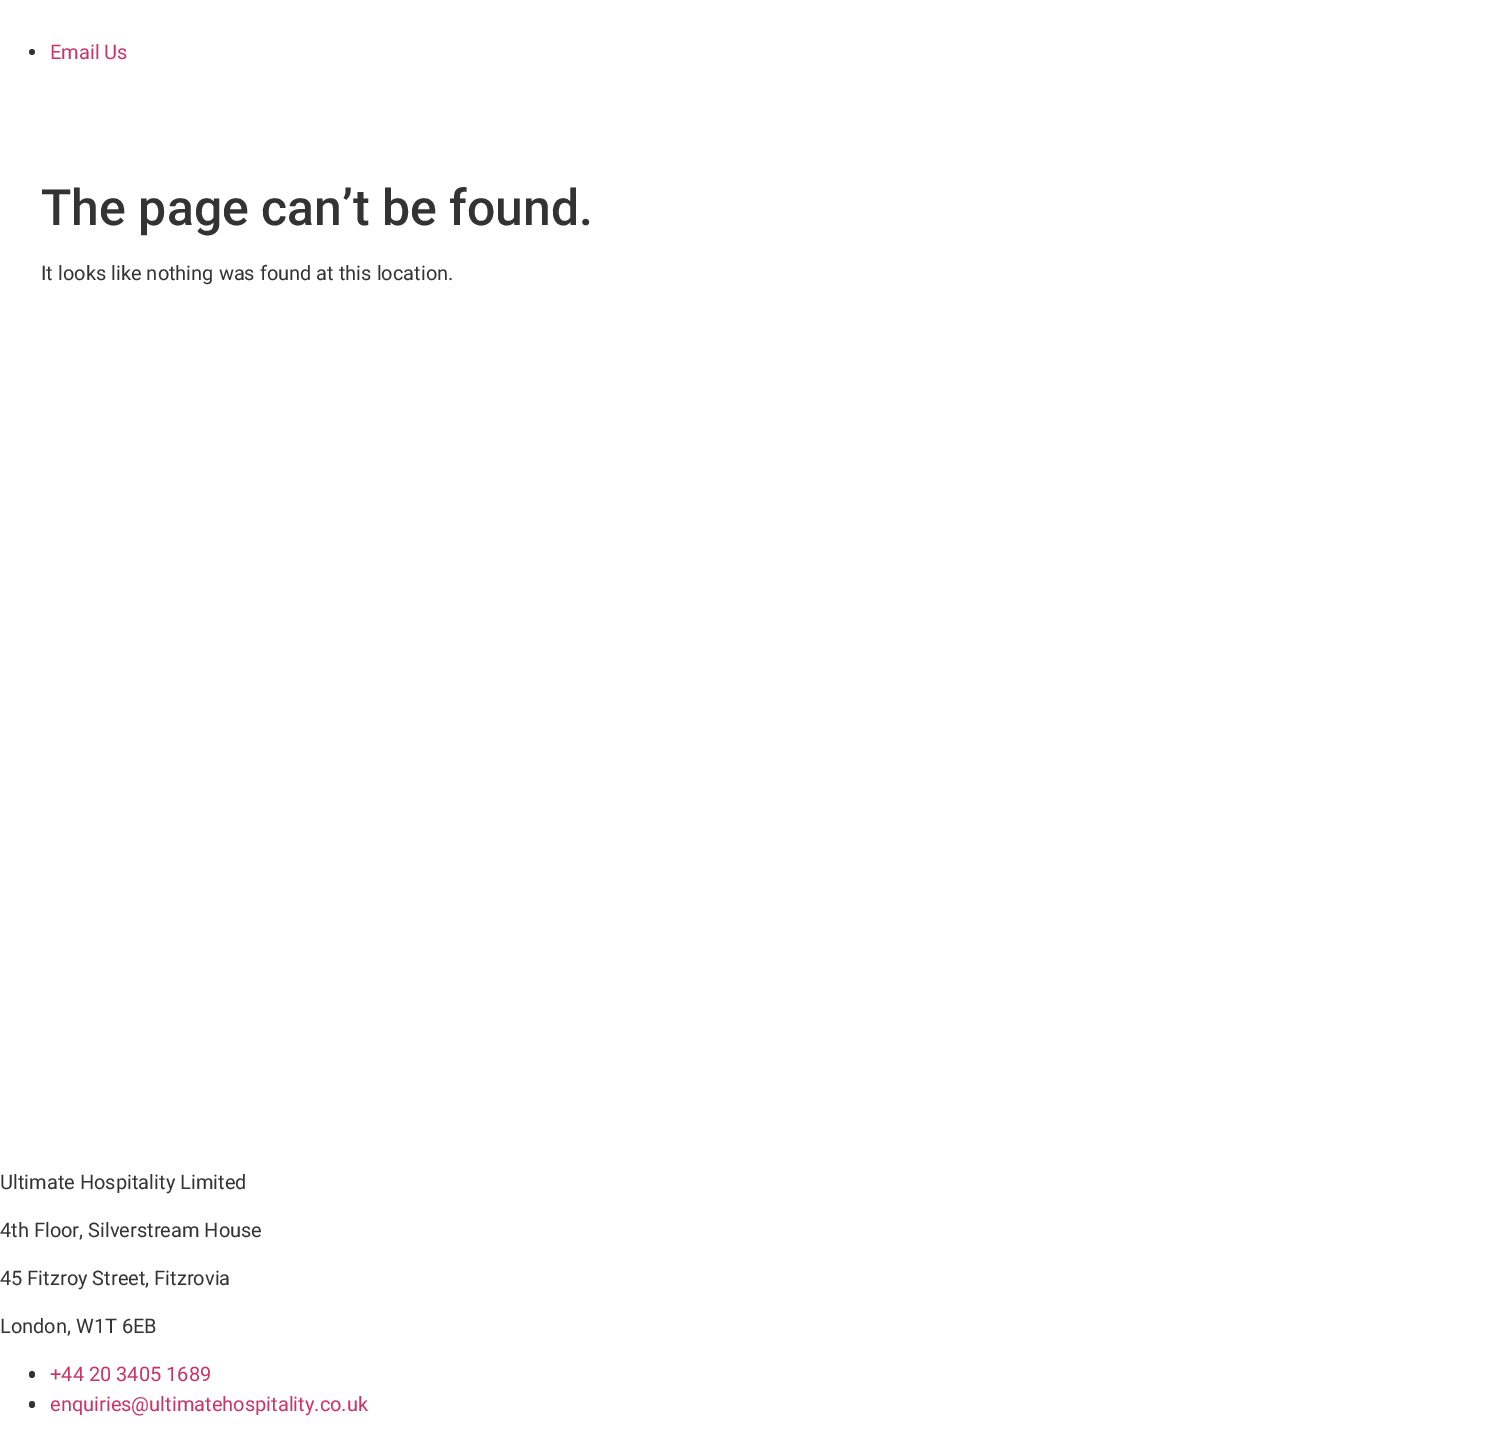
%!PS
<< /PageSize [1507 1452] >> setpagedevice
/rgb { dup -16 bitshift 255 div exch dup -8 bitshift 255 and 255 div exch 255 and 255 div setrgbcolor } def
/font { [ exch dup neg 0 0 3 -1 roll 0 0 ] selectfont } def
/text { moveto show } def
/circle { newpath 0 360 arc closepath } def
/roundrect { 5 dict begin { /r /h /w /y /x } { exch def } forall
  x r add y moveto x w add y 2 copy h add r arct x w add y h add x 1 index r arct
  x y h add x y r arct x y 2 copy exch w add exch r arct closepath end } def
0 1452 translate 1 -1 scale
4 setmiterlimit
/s1 { /Roboto-Regular 20 font 16#CC3366 rgb } def
/s2 { /Roboto-Medium 50 font 16#333333 rgb } def
/s3 { /Roboto-Regular 20 font 16#333333 rgb } def
16#FFFFFF rgb
0 0 1507 1452 rectfill
16#333333 rgb
32 52 3 circle fill
s1
(Email Us) 50 59 text
s2
(The page can’t be found.) 41 225 text
s3
(It looks like nothing was found at this location.) 41 280 text
(Ultimate Hospitality Limited) 0 1189 text
(4th Floor, Silverstream House) 0 1237 text
(45 Fitzroy Street, Fitzrovia) 0 1285 text
(London, W1T 6EB) 0 1333 text
29 1371 6 7 3 roundrect fill
s1
(+44 20 3405 1689) 50 1381 text
16#333333 rgb
29 1401 6 7 3 roundrect fill
s1
(enquiries@ultimatehospitality.co.uk) 50 1411 text
showpage
